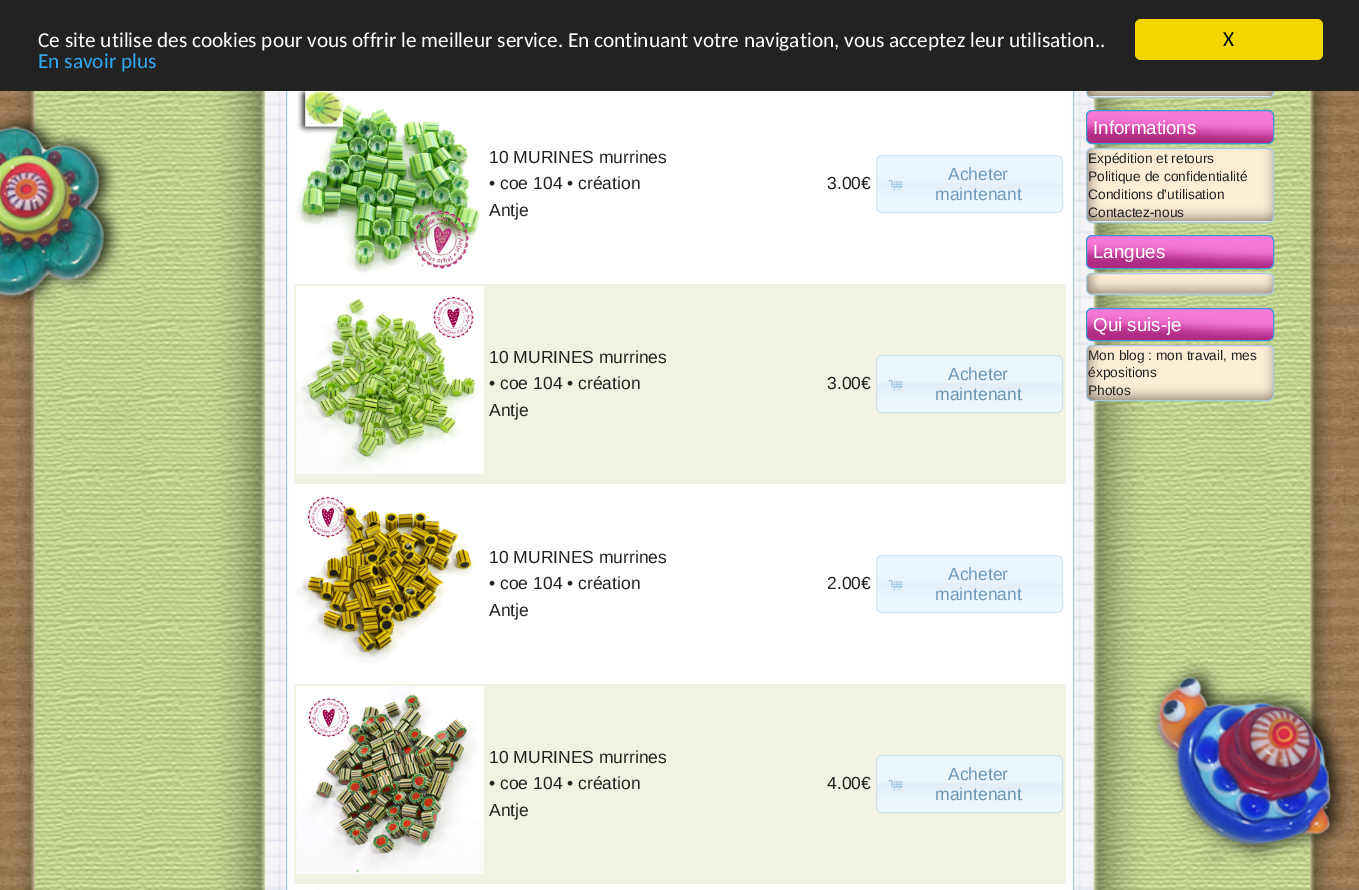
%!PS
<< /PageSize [1359 890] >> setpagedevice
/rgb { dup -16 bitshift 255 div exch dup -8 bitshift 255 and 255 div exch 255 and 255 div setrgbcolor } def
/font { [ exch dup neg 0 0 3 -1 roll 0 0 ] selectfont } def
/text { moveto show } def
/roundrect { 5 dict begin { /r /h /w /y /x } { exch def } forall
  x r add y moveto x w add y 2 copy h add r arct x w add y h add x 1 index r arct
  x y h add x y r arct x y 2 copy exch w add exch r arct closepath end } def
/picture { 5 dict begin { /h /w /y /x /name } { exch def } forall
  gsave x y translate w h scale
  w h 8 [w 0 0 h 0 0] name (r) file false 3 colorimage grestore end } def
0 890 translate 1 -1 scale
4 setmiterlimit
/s1 { /Carlito-Regular 21.25 font 16#FFFFFF rgb } def
/s2 { /Carlito-Regular 21.25 font 16#31A8F0 rgb } def
/s3 { /Carlito-Regular 21.25 font 16#000000 rgb } def
/s4 { /LiberationSans-Regular 17.5 font 16#222222 rgb } def
/s5 { /LiberationSans-Regular 17.5 font 16#6D9ABB rgb } def
/s6 { /LiberationSans-Regular 17.5 font 16#6996B3 rgb } def
/s7 { /LiberationSans-Regular 18.75 font 16#FFFFFF rgb } def
/s8 { /LiberationSans-Regular 13.75 font 16#222222 rgb } def
16#FFFFFF rgb
0 0 1359 890 rectfill
(pic1.raw) 0 91 1359 799 picture
16#FCFDFD rgb
287 91 786 799 rectfill
16#A6C9E2 rgb
286.5 -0.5 787 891 rectstroke
16#FCFDFD rgb
1086 -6 188 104 6 roundrect fill
(pic12.raw) 1086 91 188 6 picture
16#A6C9E2 rgb
1086.5 -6.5 187 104 5.5 roundrect stroke
16#222222 rgb
0 0 1359 91 rectfill
s1
(Ce site utilise des cookies pour vous offrir le meilleur service. En continuant votre navigation, vous acceptez leur utilisation..) 38 47 text
s2
(En savoir plus) 38 68 text
16#F1D600 rgb
1135 19 188 41 6 roundrect fill
s3
(X) 1223 46 text
16#FFFFFF rgb
294 91 772 799 rectfill
(pic2.raw) 296 91 184 182 picture
s4
(10 MURINES murrines) 489 163 text
(• coe 104 • création) 489 189 text
(Antje) 489 216 text
(3.00€) 827 189 text
16#E9F4FD rgb
876 155 187 58 6 roundrect fill
(pic3.raw) 876 183 186 29 picture
16#D6E6F2 rgb
876.5 155.5 186 57 5.5 roundrect stroke
(pic4.raw) 888 179 15 12 picture
s5
(Acheter) 948 180 text
(maintenant) 935 200 text
16#F2F2E4 rgb
294 284 772 200 rectfill
(pic5.raw) 296 286 188 188 picture
s4
(10 MURINES murrines) 489 363 text
(• coe 104 • création) 489 389 text
(Antje) 489 416 text
(3.00€) 827 389 text
(pic6.raw) 877 355 185 57 picture
16#D3E2EA rgb
876.5 355.5 186 57 5.5 roundrect stroke
(pic7.raw) 888 379 15 12 picture
s6
(Acheter) 948 380 text
(maintenant) 935 400 text
(pic8.raw) 296 496 181 167 picture
s4
(10 MURINES murrines) 489 563 text
(• coe 104 • création) 489 589 text
(Antje) 489 616 text
(2.00€) 827 589 text
16#E9F4FD rgb
876 555 187 58 6 roundrect fill
(pic9.raw) 876 583 186 29 picture
16#D6E6F2 rgb
876.5 555.5 186 57 5.5 roundrect stroke
(pic4.raw) 888 579 15 12 picture
s5
(Acheter) 948 580 text
(maintenant) 935 600 text
16#F2F2E4 rgb
294 684 772 200 rectfill
(pic10.raw) 296 686 188 188 picture
s4
(10 MURINES murrines) 489 763 text
(• coe 104 • création) 489 789 text
(Antje) 489 816 text
(4.00€) 827 789 text
(pic6.raw) 877 755 185 57 picture
16#D3E2EA rgb
876.5 755.5 186 57 5.5 roundrect stroke
(pic7.raw) 888 779 15 12 picture
s6
(Acheter) 948 780 text
(maintenant) 935 800 text
(pic11.raw) 315 888 5 2 picture
(pic13.raw) 1137 91 7 1 picture
(pic14.raw) 1086 110 188 34 picture
16#4297D7 rgb
1086.5 110.5 187 33 5.5 roundrect stroke
s7
(Informations) 1093 134 text
16#FCFDFD rgb
1086 148 188 75 6 roundrect fill
(pic15.raw) 1086 147 188 75 picture
16#A6C9E2 rgb
1086.5 148.5 187 74 5.5 roundrect stroke
s8
(Expédition et retours) 1088 163 text
(Politique de confidentialité) 1088 181 text
(Conditions d'utilisation) 1088 199 text
(Contactez-nous) 1088 217 text
(pic16.raw) 1086 235 188 34 picture
16#4297D7 rgb
1086.5 235.5 187 33 5.5 roundrect stroke
s7
(Langues) 1093 258 text
(pic17.raw) 1086 272 188 22 picture
16#A6C9E2 rgb
1086.5 273.5 187 21 5.5 roundrect stroke
(pic18.raw) 1086 307 188 35 picture
16#4297D7 rgb
1086.5 308.5 187 32 5.5 roundrect stroke
s7
(Qui suis-je) 1093 331 text
(pic19.raw) 1086 345 188 55 picture
16#A6C9E2 rgb
1086.5 345.5 187 55 5.5 roundrect stroke
s8
(Mon blog : mon travail, mes) 1088 360 text
(éxpositions) 1088 377 text
(Photos) 1088 395 text
showpage
